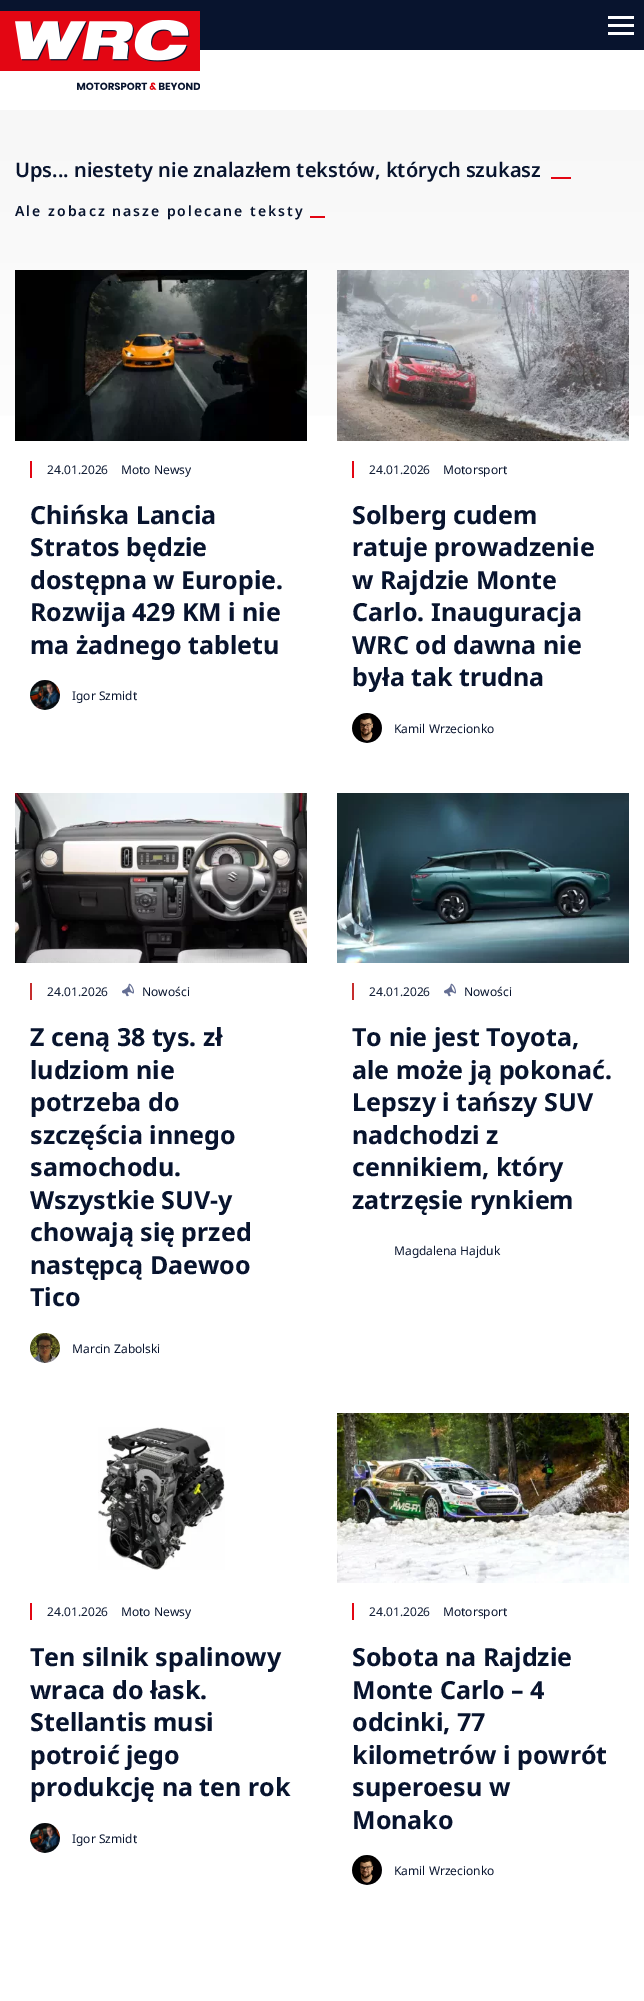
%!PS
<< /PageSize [644 2001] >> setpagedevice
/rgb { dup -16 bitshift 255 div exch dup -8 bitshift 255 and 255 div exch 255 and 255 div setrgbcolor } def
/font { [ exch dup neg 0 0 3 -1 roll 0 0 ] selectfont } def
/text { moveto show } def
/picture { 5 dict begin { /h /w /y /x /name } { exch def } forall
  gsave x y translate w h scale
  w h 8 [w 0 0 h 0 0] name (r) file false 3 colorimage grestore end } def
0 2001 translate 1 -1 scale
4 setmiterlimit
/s1 { /NotoSans-SemiBold 20 font 16#08142E rgb } def
/s2 { /NotoSans-Regular 12 font 16#142038 rgb } def
/s3 { /NotoSans-Regular 12 font 16#08142E rgb } def
/s4 { /NotoSans-Bold 25 font 16#08142E rgb } def
16#FFFFFF rgb
0 0 644 2001 rectfill
16#08142E rgb
0 0 644 50 rectfill
16#FFFFFF rgb
608 16 26 3 rectfill
608 24 26 3 rectfill
608 32 26 3 rectfill
16#E30613 rgb
0 11 200 60 rectfill
(pic1.raw) 15 20 185 70 picture
gsave 0 110 moveto 644 110 lineto 644 416 lineto 0 416 lineto closepath clip newpath
<< /ShadingType 2 /ColorSpace /DeviceRGB /Coords [322 110 322 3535] /Extend [true true] /Function << /FunctionType 3 /Domain [0 1] /Functions [<< /FunctionType 2 /Domain [0 1] /C0 [0.969 0.969 0.969] /C1 [1 1 1] /N 1 >> << /FunctionType 2 /Domain [0 1] /C0 [1 1 1] /C1 [1 1 1] /N 1 >>] /Bounds [0.13] /Encode [0 1 0 1] >> >> shfill grestore
s1
(Ups... niestety nie znalazłem tekstów, których szukasz) 15 177 text
16#E30613 rgb
551 177 20 2 rectfill
/NotoSans-SemiBold 14 font
16#08142E rgb
15 216 moveto 2 0 (Ale zobacz nasze polecane teksty) ashow
16#E30613 rgb
310 216 15 2 rectfill
(pic2.raw) 15 270 292 171 picture
30 461 2 17 rectfill
s2
(24.01.2026) 47 474 text
s3
(Moto Newsy) 121 474 text
s4
(Chińska Lancia) 30 524 text
(Stratos będzie) 30 556 text
(dostępna w Europie.) 30 589 text
(Rozwija 429 KM i nie) 30 621 text
(ma żadnego tabletu) 30 654 text
(pic3.raw) 30 680 30 30 picture
s3
(Igor Szmidt) 72 700 text
(pic4.raw) 337 270 292 171 picture
16#E30613 rgb
352 461 2 17 rectfill
s2
(24.01.2026) 369 474 text
s3
(Motorsport) 443 474 text
s4
(Solberg cudem) 352 524 text
(ratuje prowadzenie) 352 556 text
(w Rajdzie Monte) 352 589 text
(Carlo. Inauguracja) 352 621 text
(WRC od dawna nie) 352 654 text
(była tak trudna) 352 686 text
(pic5.raw) 352 713 30 30 picture
s3
(Kamil Wrzecionko) 394 733 text
(pic6.raw) 15 793 292 170 picture
16#C62D2D rgb
30 983 2 17 rectfill
s2
(24.01.2026) 47 996 text
(pic7.raw) 122 983 12 14 picture
s3
(Nowości) 142 996 text
s4
(Z ceną 38 tys. zł) 30 1046 text
(ludziom nie) 30 1079 text
(potrzeba do) 30 1111 text
(szczęścia innego) 30 1144 text
(samochodu.) 30 1176 text
(Wszystkie SUV-y) 30 1209 text
(chowają się przed) 30 1241 text
(następcą Daewoo) 30 1274 text
(Tico) 30 1306 text
(pic8.raw) 30 1333 30 30 picture
s3
(Marcin Zabolski) 72 1353 text
(pic9.raw) 337 793 292 170 picture
16#C62D2D rgb
352 983 2 17 rectfill
s2
(24.01.2026) 369 996 text
(pic7.raw) 444 983 12 14 picture
s3
(Nowości) 464 996 text
s4
(To nie jest Toyota,) 352 1046 text
(ale może ją pokonać.) 352 1079 text
(Lepszy i tańszy SUV) 352 1111 text
(nadchodzi z) 352 1144 text
(cennikiem, który) 352 1176 text
(zatrzęsie rynkiem) 352 1209 text
s3
(Magdalena Hajduk) 394 1255 text
(pic10.raw) 98 1427 127 143 picture
16#E30613 rgb
30 1603 2 17 rectfill
s2
(24.01.2026) 47 1616 text
s3
(Moto Newsy) 121 1616 text
s4
(Ten silnik spalinowy) 30 1666 text
(wraca do łask.) 30 1699 text
(Stellantis musi) 30 1731 text
(potroić jego) 30 1764 text
(produkcję na ten rok) 30 1796 text
(pic11.raw) 30 1823 30 30 picture
s3
(Igor Szmidt) 72 1843 text
(pic12.raw) 337 1413 292 170 picture
16#E30613 rgb
352 1603 2 17 rectfill
s2
(24.01.2026) 369 1616 text
s3
(Motorsport) 443 1616 text
s4
(Sobota na Rajdzie) 352 1666 text
(Monte Carlo – 4) 352 1699 text
(odcinki, 77) 352 1731 text
(kilometrów i powrót) 352 1764 text
(superoesu w) 352 1796 text
(Monako) 352 1829 text
(pic13.raw) 352 1855 30 30 picture
s3
(Kamil Wrzecionko) 394 1875 text
showpage
